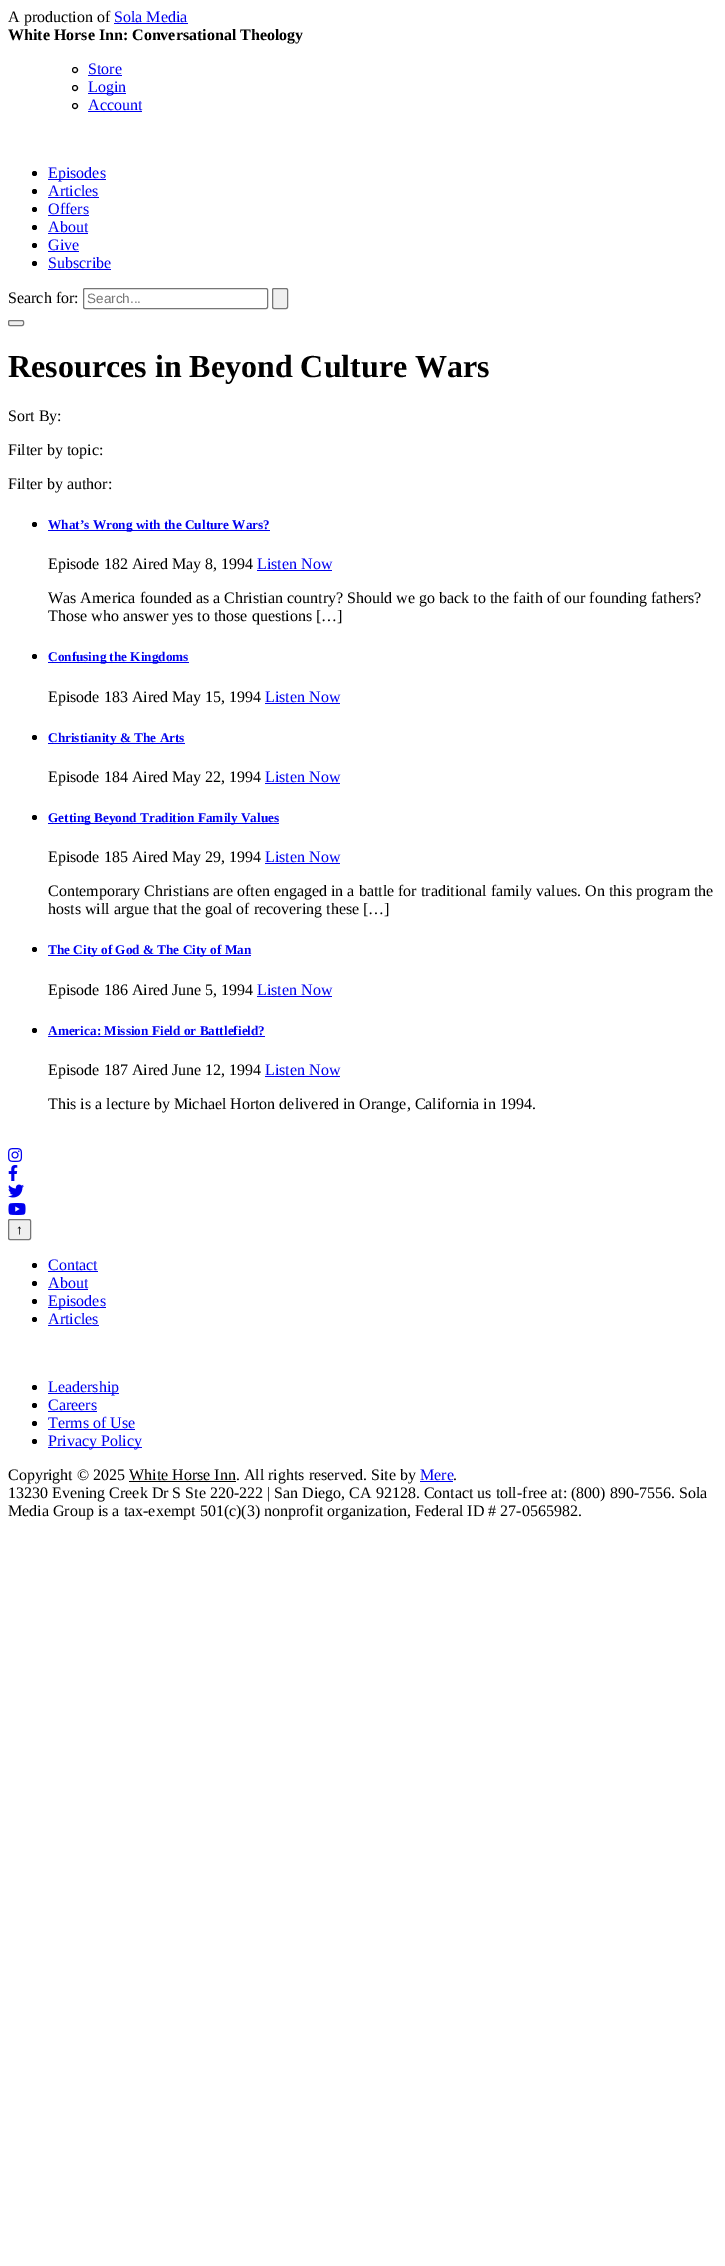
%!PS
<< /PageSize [725 2266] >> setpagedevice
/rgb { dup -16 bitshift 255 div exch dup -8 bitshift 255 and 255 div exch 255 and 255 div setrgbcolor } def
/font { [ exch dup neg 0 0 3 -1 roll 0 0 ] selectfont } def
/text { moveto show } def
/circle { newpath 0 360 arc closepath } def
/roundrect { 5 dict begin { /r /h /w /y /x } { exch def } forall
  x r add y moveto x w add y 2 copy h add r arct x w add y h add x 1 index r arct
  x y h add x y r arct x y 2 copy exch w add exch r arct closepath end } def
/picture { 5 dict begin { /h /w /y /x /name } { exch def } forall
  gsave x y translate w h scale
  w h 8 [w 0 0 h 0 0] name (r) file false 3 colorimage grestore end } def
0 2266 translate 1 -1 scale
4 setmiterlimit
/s1 { /LiberationSerif-Regular 16 font 16#000000 rgb } def
/s2 { /LiberationSerif-Regular 16 font 16#0000EE rgb } def
/s3 { /LiberationSerif-Bold 16 font 16#000000 rgb } def
/s4 { /LiberationSans-Regular 13.5 font 16#757575 rgb } def
/s5 { /LiberationSerif-Bold 32 font 16#000000 rgb } def
/s6 { /LiberationSerif-Bold 13.25 font 16#0000EE rgb } def
/s7 { /LiberationSans-Regular 13.5 font 16#000000 rgb } def
16#FFFFFF rgb
0 0 725 2266 rectfill
s1
(A production of) 8 22 text
s2
(Sola Media) 114 22 text
114 23 74 1 rectfill
s3
(White Horse Inn: Conversational Theology) 8 40 text
75 70 2.5 circle stroke
s2
(Store) 88 74 text
88 75 34 1 rectfill
16#000000 rgb
75 88 2.5 circle stroke
16#0000EE rgb
88 93 38 1 rectfill
(Login) 88 92 text
16#000000 rgb
75 106 2.5 circle stroke
s2
(Account) 88 110 text
88 111 54 1 rectfill
16#000000 rgb
34.5 173.5 2.5 circle fill
16#0000EE rgb
48 179 58 1 rectfill
(Episodes) 48 178 text
16#000000 rgb
34.5 191.5 2.5 circle fill
s2
(Articles) 48 196 text
48 197 51 1 rectfill
16#000000 rgb
34.5 209.5 2.5 circle fill
s2
(Offers) 48 214 text
48 215 41 1 rectfill
16#000000 rgb
34.5 227.5 2.5 circle fill
s2
(About) 48 232 text
48 233 40 1 rectfill
16#000000 rgb
34.5 245.5 2.5 circle fill
s2
(Give) 48 250 text
48 251 31 1 rectfill
16#000000 rgb
34.5 263.5 2.5 circle fill
s2
(Subscribe) 48 268 text
48 269 63 1 rectfill
s1
(Search for:) 8 303 text
16#767676 rgb
83.5 288.5 184 20 1.5 roundrect stroke
s4
(Search...) 87 303 text
16#EFEFEF rgb
272.5 288.5 15 20 1.5 roundrect gsave fill grestore
16#767676 rgb
stroke
16#EFEFEF rgb
8.5 320.5 15 5 1.5 roundrect gsave fill grestore
16#767676 rgb
stroke
s5
(Resources in Beyond Culture Wars) 8 377 text
s1
(Sort By:) 8 421 text
(Filter by topic:) 8 455 text
(Filter by author:) 8 489 text
34.5 524.5 2.5 circle fill
16#0000EE rgb
48 530 222 1 rectfill
s6
(What’s Wrong with the Culture Wars?) 48 529 text
s1
(Episode 182 Aired May 8, 1994) 48 569 text
s2
(Listen Now) 257 569 text
257 570 75 1 rectfill
s1
(Was America founded as a Christian country? Should we go back to the faith of our founding fathers?) 48 603 text
(Those who answer yes to those questions […]) 48 621 text
34.5 656.5 2.5 circle fill
16#0000EE rgb
48 662 141 1 rectfill
s6
(Confusing the Kingdoms) 48 661 text
s1
(Episode 183 Aired May 15, 1994) 48 702 text
s2
(Listen Now) 265 702 text
265 703 75 1 rectfill
16#000000 rgb
34.5 737.5 2.5 circle fill
16#0000EE rgb
48 743 137 1 rectfill
s6
(Christianity & The Arts) 48 742 text
s1
(Episode 184 Aired May 22, 1994) 48 782 text
s2
(Listen Now) 265 782 text
265 783 75 1 rectfill
16#000000 rgb
34.5 817.5 2.5 circle fill
16#0000EE rgb
48 823 231 1 rectfill
s6
(Getting Beyond Tradition Family Values) 48 822 text
s1
(Episode 185 Aired May 29, 1994) 48 862 text
s2
(Listen Now) 265 862 text
265 863 75 1 rectfill
s1
(Contemporary Christians are often engaged in a battle for traditional family values. On this program the) 48 896 text
(hosts will argue that the goal of recovering these […]) 48 914 text
34.5 949.5 2.5 circle fill
16#0000EE rgb
48 955 203 1 rectfill
s6
(The City of God & The City of Man) 48 954 text
s1
(Episode 186 Aired June 5, 1994) 48 995 text
s2
(Listen Now) 257 995 text
257 996 75 1 rectfill
16#000000 rgb
34.5 1030.5 2.5 circle fill
s6
(America: Mission Field or Battlefield?) 48 1035 text
48 1036 217 1 rectfill
s1
(Episode 187 Aired June 12, 1994) 48 1075 text
s2
(Listen Now) 265 1075 text
265 1076 75 1 rectfill
s1
(This is a lecture by Michael Horton delivered in Orange, California in 1994.) 48 1109 text
(pic1.raw) 8 1148 15 14 picture
(pic2.raw) 8 1165 10 16 picture
(pic3.raw) 8 1184 16 14 picture
(pic4.raw) 8 1203 18 12 picture
16#EFEFEF rgb
8.5 1219.5 22 20 1.5 roundrect gsave fill grestore
16#767676 rgb
stroke
s7
(↑) 16 1234 text
34.5 1265.5 2.5 circle fill
s2
(Contact) 48 1270 text
48 1271 50 1 rectfill
16#000000 rgb
34.5 1283.5 2.5 circle fill
s2
(About) 48 1288 text
48 1289 40 1 rectfill
16#000000 rgb
34.5 1301.5 2.5 circle fill
16#0000EE rgb
48 1307 58 1 rectfill
(Episodes) 48 1306 text
16#000000 rgb
34.5 1319.5 2.5 circle fill
s2
(Articles) 48 1324 text
48 1325 51 1 rectfill
16#000000 rgb
34.5 1387.5 2.5 circle fill
16#0000EE rgb
48 1393 71 1 rectfill
(Leadership) 48 1392 text
16#000000 rgb
34.5 1405.5 2.5 circle fill
s2
(Careers) 48 1410 text
48 1411 49 1 rectfill
16#000000 rgb
34.5 1423.5 2.5 circle fill
s2
(Terms of Use) 48 1428 text
48 1429 87 1 rectfill
16#000000 rgb
34.5 1441.5 2.5 circle fill
16#0000EE rgb
48 1447 94 1 rectfill
(Privacy Policy) 48 1446 text
s1
(Copyright © 2025 White Horse Inn. All rights reserved. Site by) 8 1480 text
s2
(Mere) 420 1480 text
420 1481 33 1 rectfill
s1
(.) 453 1480 text
129 1481 107 1 rectfill
(13230 Evening Creek Dr S Ste 220-222 | San Diego, CA 92128. Contact us toll-free at: \(800\) 890-7556. Sola) 8 1498 text
(Media Group is a tax-exempt 501\(c\)\(3\) nonprofit organization, Federal ID # 27-0565982.) 8 1516 text
showpage
